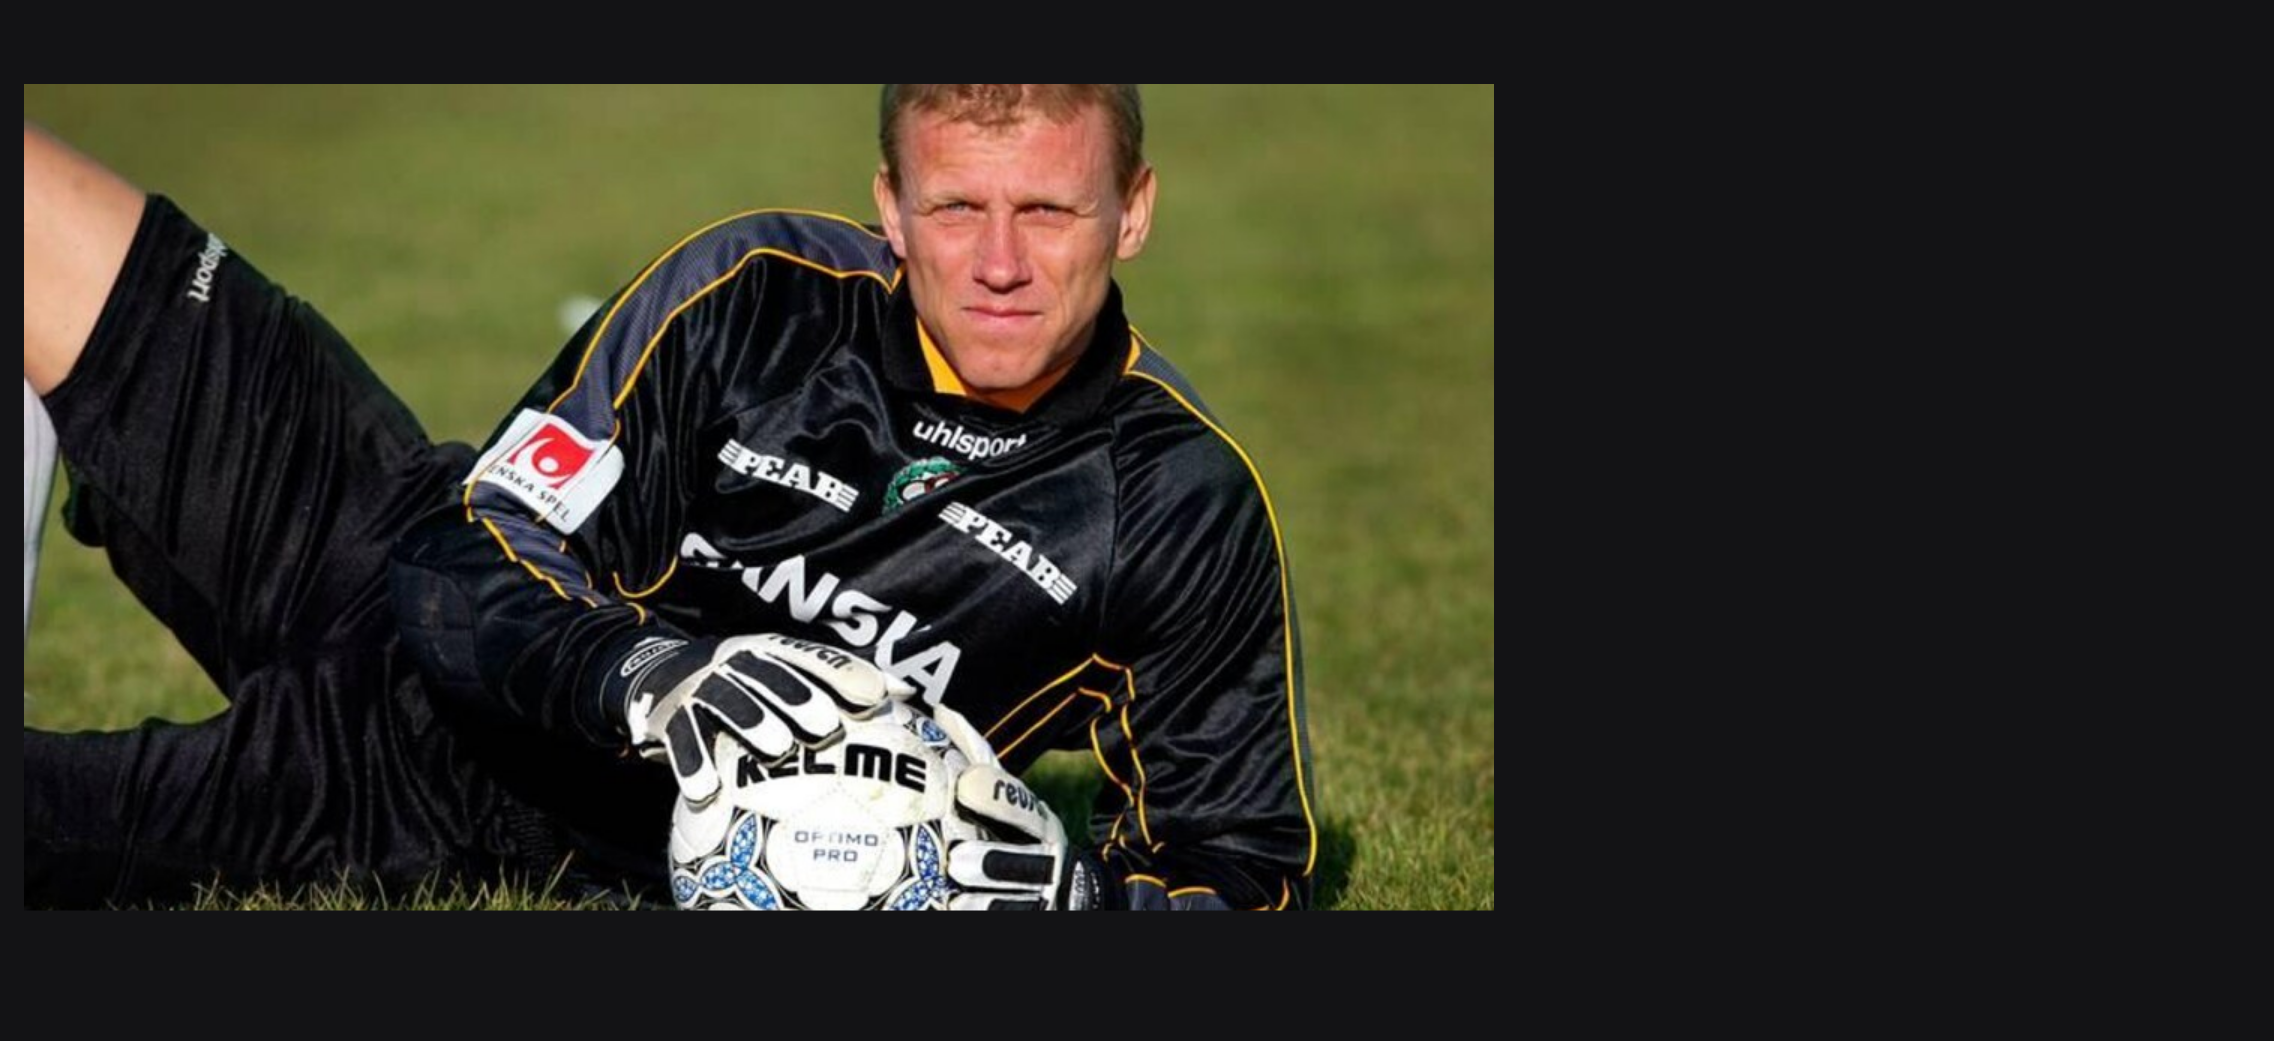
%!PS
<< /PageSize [2274 1041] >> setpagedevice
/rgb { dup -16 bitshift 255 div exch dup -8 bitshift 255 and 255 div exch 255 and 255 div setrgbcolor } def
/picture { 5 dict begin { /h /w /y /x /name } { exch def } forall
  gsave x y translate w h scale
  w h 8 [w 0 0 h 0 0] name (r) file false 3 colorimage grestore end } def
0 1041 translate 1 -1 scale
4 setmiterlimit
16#131315 rgb
0 0 2274 1041 rectfill
(pic1.raw) 24 84 1470 827 picture
showpage
